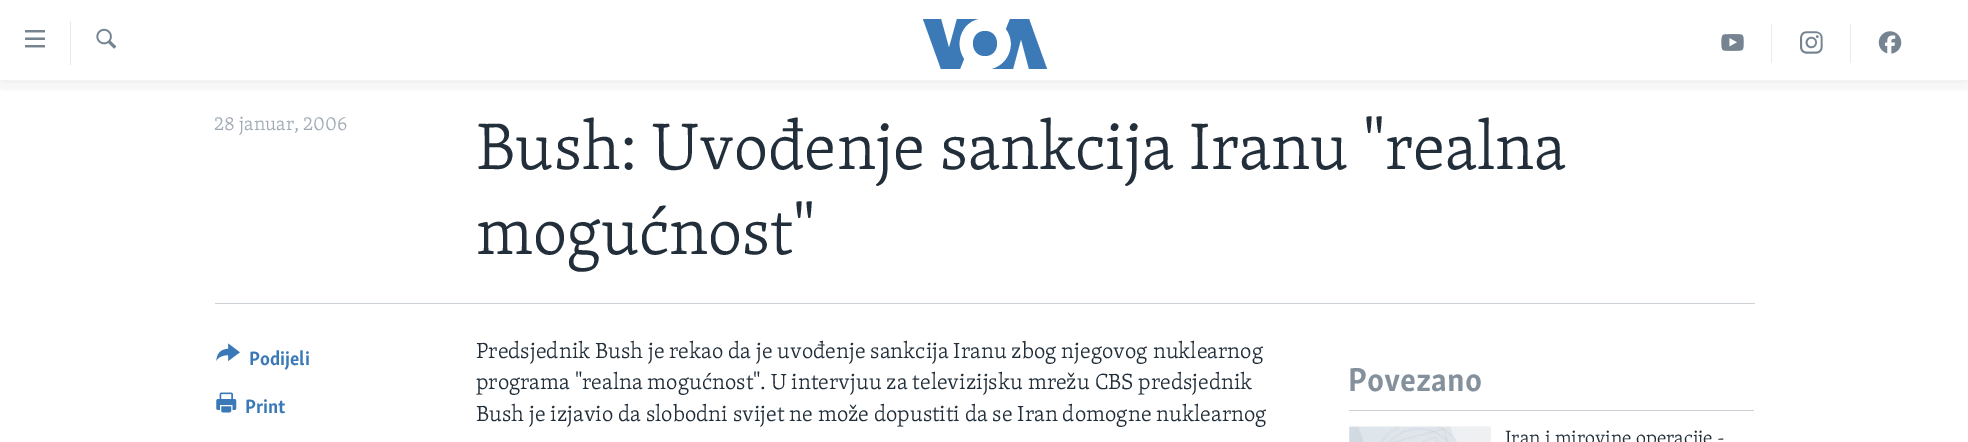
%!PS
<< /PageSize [1968 442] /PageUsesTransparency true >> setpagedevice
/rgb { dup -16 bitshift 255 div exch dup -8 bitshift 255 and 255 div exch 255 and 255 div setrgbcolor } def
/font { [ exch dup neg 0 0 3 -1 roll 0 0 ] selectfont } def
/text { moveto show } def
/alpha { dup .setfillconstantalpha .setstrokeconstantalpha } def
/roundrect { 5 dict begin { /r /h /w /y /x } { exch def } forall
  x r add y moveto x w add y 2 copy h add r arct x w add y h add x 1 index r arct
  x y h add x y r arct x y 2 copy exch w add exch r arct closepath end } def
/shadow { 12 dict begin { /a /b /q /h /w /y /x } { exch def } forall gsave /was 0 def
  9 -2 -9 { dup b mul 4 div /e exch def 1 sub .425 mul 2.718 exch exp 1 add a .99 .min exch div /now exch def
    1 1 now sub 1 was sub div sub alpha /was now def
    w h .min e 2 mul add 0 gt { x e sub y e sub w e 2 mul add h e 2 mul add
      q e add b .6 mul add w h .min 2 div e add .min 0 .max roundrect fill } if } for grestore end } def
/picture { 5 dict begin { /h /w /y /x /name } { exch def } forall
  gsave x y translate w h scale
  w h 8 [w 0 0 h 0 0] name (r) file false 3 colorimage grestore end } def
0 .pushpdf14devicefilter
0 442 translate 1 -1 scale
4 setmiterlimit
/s1 { /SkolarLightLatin-Light 19.75 font 16#A1AAB4 rgb } def
/s2 { /SkolarLightLatin-Light 67.5 font 16#222F3A rgb } def
/s3 { /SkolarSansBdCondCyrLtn-Bold 19.75 font 16#3A79B7 rgb } def
/s4 { /SkolarLightLatin-Light 22.5 font 16#222F3A rgb } def
/s5 { /SkolarSansBdCondCyrLtn-Bold 34 font 16#84919D rgb } def
/s6 { /SkolarLightLatin-Light 19.75 font 16#222F3A rgb } def
16#FFFFFF rgb
0 0 1968 442 rectfill
gsave
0 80 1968 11 rectclip
16#000000 rgb
0 0 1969 80 0 12.5 0.1 shadow
grestore
(pic1.raw) 25 30 20 18 picture
16#EBEBEB rgb
70 21 1 44 rectfill
(pic2.raw) 96 28 21 21 picture
16#3B79B7 rgb
964 59 moveto 960 69 lineto 941 69 lineto 923 19 lineto 941 19 lineto 949 48 lineto 957 19 lineto 978 19 lineto 961 23 954 44 964 59 curveto closepath 985 31 moveto 969 31 969 56 985 56 curveto 1001 56 1001 31 985 31 curveto closepath 1011 44 moveto 1011 56 1003 66 992 69 curveto 1013 69 lineto 1021 39 lineto 1029 69 lineto 1047 69 lineto 1029 19 lineto 1010 19 lineto 1006 29 lineto 1009 33 1011 38 1011 44 curveto closepath fill
16#EBEBEB rgb
1771 24 1 39 rectfill
(pic3.raw) 1721 34 23 17 picture
1850 24 1 39 rectfill
(pic4.raw) 1800 31 23 23 picture
(pic5.raw) 1878 31 24 23 picture
s1
(28 januar, 2006) 214 130 text
s2
(Bush: Uvođenje sankcija Iranu "realna) 476 169 text
(mogućnost") 476 254 text
16#CBD1D6 rgb
215 303 1540 1 rectfill
(pic6.raw) 216 343 24 18 picture
s3
(Podijeli) 249 365 text
(pic7.raw) 216 392 21 21 picture
(Print) 245 413 text
s4
(Predsjednik Bush je rekao da je uvođenje sankcija Iranu zbog njegovog nuklearnog) 476 358 text
(programa "realna mogućnost". U intervjuu za televizijsku mrežu CBS predsjednik) 476 389 text
(Bush je izjavio da slobodni svijet ne može dopustiti da se Iran domogne nuklearnog) 476 421 text
16#CBD1D6 rgb
1349 410 405 1 rectfill
s5
(Povezano) 1348 391 text
16#F6F7F8 rgb
1349 426 141 16 rectfill
(pic8.raw) 1349 426 142 16 picture
s6
(Iran i mirovine operacije -) 1505 444 text
.poppdf14devicefilter showpage
